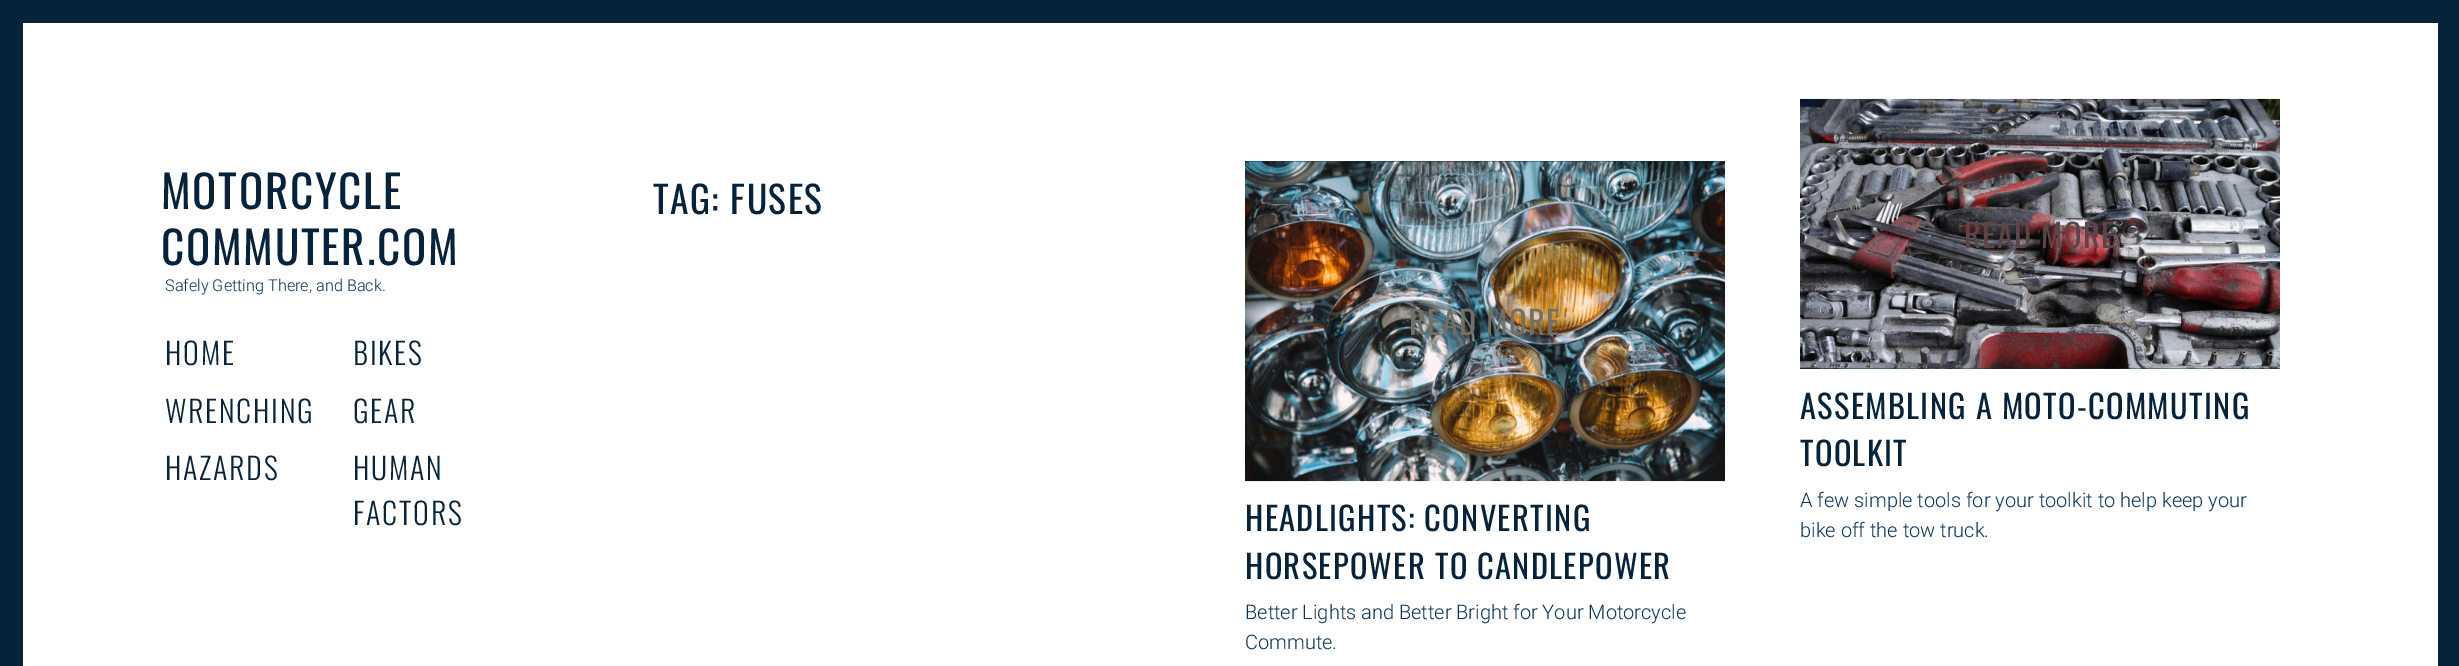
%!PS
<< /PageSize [2459 666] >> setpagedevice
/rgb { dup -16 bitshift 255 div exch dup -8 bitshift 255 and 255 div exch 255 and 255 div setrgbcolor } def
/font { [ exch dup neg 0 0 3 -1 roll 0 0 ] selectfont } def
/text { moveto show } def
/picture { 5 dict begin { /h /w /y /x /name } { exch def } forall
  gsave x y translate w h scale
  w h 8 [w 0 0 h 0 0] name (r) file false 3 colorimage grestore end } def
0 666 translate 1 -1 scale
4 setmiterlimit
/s1 { /Roboto-Light 16.25 font 16#0A3256 rgb } def
/s2 { /Roboto-Light 20 font 16#0A3256 rgb } def
16#FFFFFF rgb
0 0 2459 666 rectfill
16#07233B rgb
23 0 2415 23 rectfill
2438 0 21 666 rectfill
0 0 23 666 rectfill
/Oswald-Regular 45 font
161 209 moveto 1.75 0 (MOTORCYCLE) ashow
161 265 moveto 1.75 0 (COMMUTER.COM) ashow
s1
(Safely Getting There, and Back.) 165 291 text
/Oswald-Light 30 font
16#07233B rgb
165 365 moveto 1.75 0 (HOME) ashow
353 365 moveto 1.75 0 (BIKES) ashow
165 423 moveto 1.75 0 (WRENCHING) ashow
353 423 moveto 1.75 0 (GEAR) ashow
165 480 moveto 1.75 0 (HAZARDS) ashow
353 480 moveto 1.75 0 (HUMAN) ashow
353 525 moveto 1.75 0 (FACTORS) ashow
/Oswald-Regular 37.5 font
653 214 moveto 1.5 0 (TAG: FUSES) ashow
16#0A3256 rgb
1245 161 480 1 rectfill
(pic1.raw) 1245 161 480 321 picture
/Oswald-Regular 32.5 font
16#726F64 rgb
1409 335 moveto 1.3 0 (READ MORE) ashow
16#07233B rgb
1245 531 moveto 1.3 0 (HEADLIGHTS: CONVERTING) ashow
1245 579 moveto 1.3 0 (HORSEPOWER TO CANDLEPOWER) ashow
s2
(Better Lights and Better Bright for Your Motorcycle) 1245 619 text
(Commute.) 1245 649 text
1800 368 480 1 rectfill
(pic2.raw) 1800 98 480 271 picture
/Oswald-Regular 32.5 font
16#604348 rgb
1964 248 moveto 1.3 0 (READ MORE) ashow
16#07233B rgb
1800 419 moveto 1.3 0 (ASSEMBLING A MOTO-COMMUTING) ashow
1800 466 moveto 1.3 0 (TOOLKIT) ashow
s2
(A few simple tools for your toolkit to help keep your) 1800 507 text
(bike off the tow truck.) 1800 537 text
showpage
